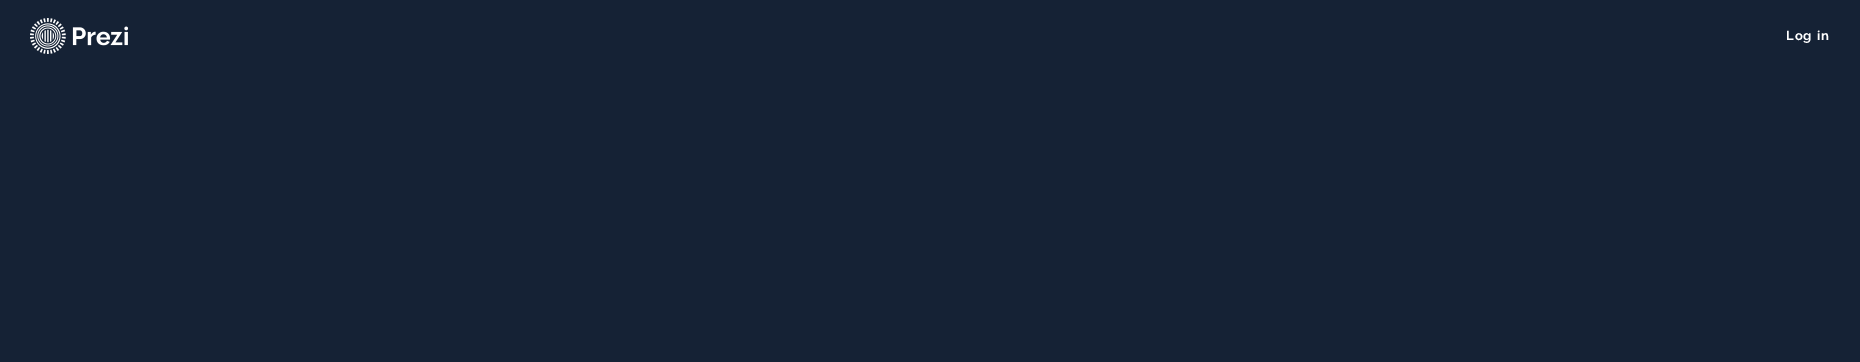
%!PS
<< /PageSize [1860 362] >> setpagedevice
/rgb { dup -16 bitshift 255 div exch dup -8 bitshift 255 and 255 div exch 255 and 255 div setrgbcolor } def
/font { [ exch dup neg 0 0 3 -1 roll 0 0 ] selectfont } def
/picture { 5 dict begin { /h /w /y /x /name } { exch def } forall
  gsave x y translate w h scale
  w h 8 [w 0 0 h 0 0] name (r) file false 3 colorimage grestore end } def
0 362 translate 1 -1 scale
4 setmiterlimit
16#152235 rgb
0 0 1860 362 rectfill
(pic1.raw) 30 18 98 36 picture
/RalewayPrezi-Bold 13 font
16#FFFFFF rgb
1786 40 moveto 1 0 (Log in) ashow
showpage
